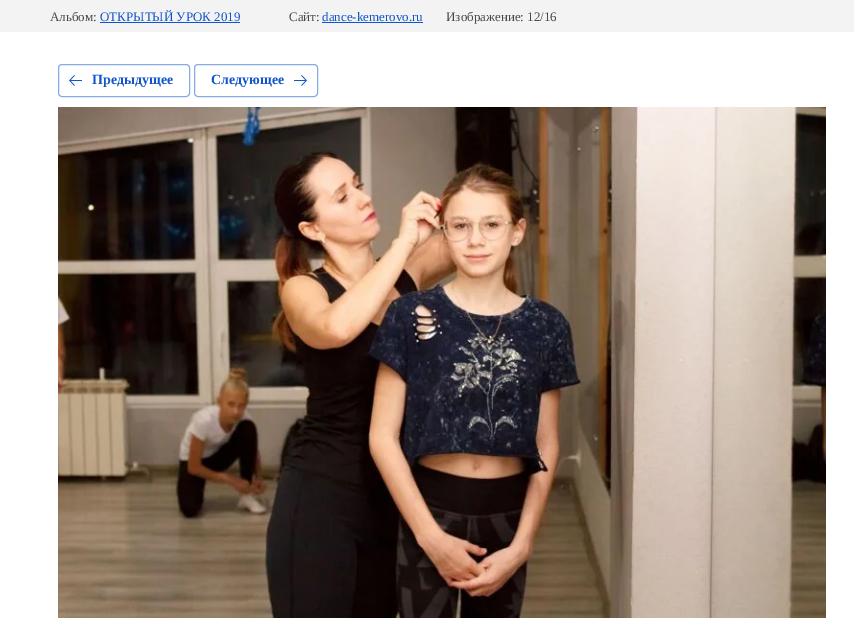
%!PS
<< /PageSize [854 624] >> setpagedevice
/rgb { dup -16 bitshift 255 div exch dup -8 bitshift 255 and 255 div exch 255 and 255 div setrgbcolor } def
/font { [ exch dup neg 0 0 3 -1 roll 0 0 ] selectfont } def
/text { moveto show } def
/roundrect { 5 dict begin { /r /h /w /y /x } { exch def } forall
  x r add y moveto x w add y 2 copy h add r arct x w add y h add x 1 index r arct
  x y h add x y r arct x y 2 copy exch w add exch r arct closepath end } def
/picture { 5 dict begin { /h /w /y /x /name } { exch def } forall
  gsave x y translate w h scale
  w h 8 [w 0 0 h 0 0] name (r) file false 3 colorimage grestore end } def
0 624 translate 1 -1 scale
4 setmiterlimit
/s1 { /LiberationSerif-Regular 13 font 16#484848 rgb } def
/s2 { /LiberationSerif-Regular 13 font 16#1155CC rgb } def
/s3 { /LiberationSerif-Bold 14 font 16#1155CC rgb } def
16#FFFFFF rgb
0 0 854 624 rectfill
16#F3F3F3 rgb
0 0 854 32 rectfill
s1
(Альбом:) 50 21 text
s2
(ОТКРЫТЫЙ УРОК 2019) 100 21 text
100 22 140 1 rectfill
s1
(Сайт:) 289 21 text
s2
(dance-kemerovo.ru) 322 21 text
322 22 101 1 rectfill
s1
(Изображение: 12/16) 446 21 text
16#88AAE6 rgb
58.5 64.5 131 32 3.5 roundrect stroke
(pic1.raw) 69 75 13 11 picture
s3
(Предыдущее) 92 84 text
16#88AAE6 rgb
194.5 64.5 123 32 3.5 roundrect stroke
s3
(Следующее) 211 84 text
(pic2.raw) 294 75 13 11 picture
(pic3.raw) 58 107 768 511 picture
showpage
